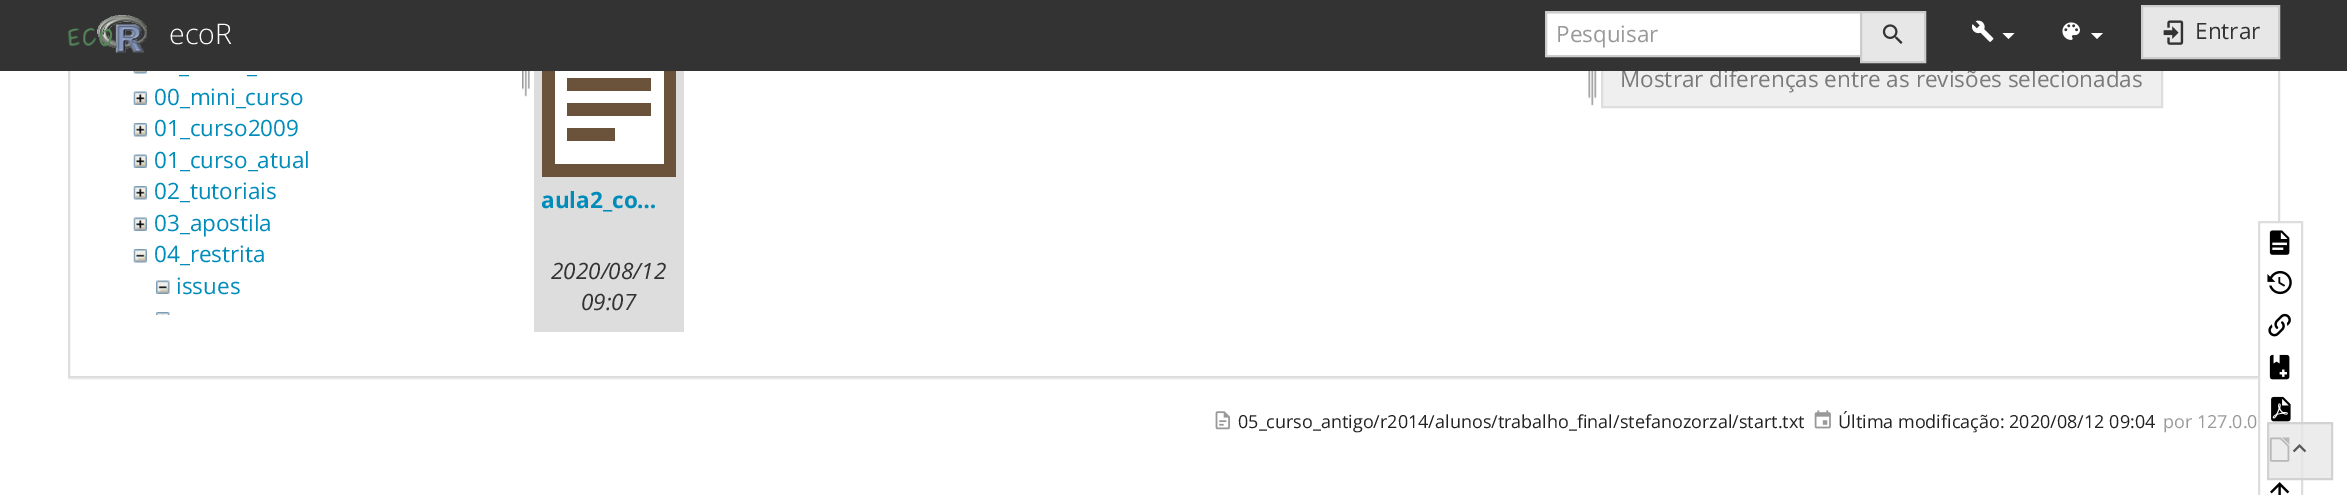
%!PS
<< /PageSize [2347 495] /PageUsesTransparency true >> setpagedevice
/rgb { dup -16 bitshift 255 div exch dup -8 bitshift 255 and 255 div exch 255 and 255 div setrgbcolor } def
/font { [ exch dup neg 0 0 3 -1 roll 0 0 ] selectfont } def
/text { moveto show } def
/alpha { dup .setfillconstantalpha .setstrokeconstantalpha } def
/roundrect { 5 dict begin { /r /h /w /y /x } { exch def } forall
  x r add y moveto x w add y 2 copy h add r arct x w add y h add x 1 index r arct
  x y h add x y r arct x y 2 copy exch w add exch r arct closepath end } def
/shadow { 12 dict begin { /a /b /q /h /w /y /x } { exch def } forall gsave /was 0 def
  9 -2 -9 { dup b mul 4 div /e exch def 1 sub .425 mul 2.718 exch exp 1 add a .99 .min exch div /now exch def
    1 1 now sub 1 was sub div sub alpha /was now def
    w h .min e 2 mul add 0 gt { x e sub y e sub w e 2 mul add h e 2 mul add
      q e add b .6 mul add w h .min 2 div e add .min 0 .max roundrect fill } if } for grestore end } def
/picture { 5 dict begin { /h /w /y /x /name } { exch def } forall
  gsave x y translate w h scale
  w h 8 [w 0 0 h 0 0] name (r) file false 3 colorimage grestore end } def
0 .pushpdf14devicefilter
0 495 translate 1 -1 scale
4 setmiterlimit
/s1 { /OpenSans-Regular 22.5 font 16#7A7A7A rgb } def
/s2 { /OpenSans-Light 28.5 font 16#FFFFFF rgb } def
/s3 { /OpenSans-Regular 22.5 font 16#999999 rgb } def
/s4 { /OpenSans-Regular 22.5 font 16#333333 rgb } def
/s5 { /OpenSans-Regular 22.5 font 16#008CBA rgb } def
/s6 { /OpenSans-Bold 22.5 font 16#008CBA rgb } def
/s7 { /OpenSans-Italic 22.5 font 16#333333 rgb } def
/s8 { /OpenSans-Regular 18 font 16#222222 rgb } def
/s9 { /OpenSans-Regular 18 font 16#999999 rgb } def
16#FFFFFF rgb
0 0 2347 495 rectfill
gsave
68 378 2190 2 rectclip
16#000000 rgb
68 -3 2212 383 0 1 0.05 shadow
grestore
16#DDDDDD rgb
2 setlinewidth
69 -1 2210 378 rectstroke
534 71 150 261 rectfill
16#FFFFFF rgb
555 71 109 93 rectfill
16#6B533B rgb
676 177 moveto 542 177 lineto 542 42 lineto 676 42 lineto closepath 555 164 moveto 664 164 lineto 664 56 lineto 555 56 lineto fill
16#EFEFEF rgb
1603 71 558 35 rectfill
16#DEDEDE rgb
1602 51 560 56 rectstroke
s1
(Mostrar diferenças entre as revisões selecionadas) 1620 87 text
16#333333 rgb
0 0 2347 71 rectfill
(pic1.raw) 68 15 79 38 picture
s2
(ecoR) 169 44 text
1547 14 313 41 rectfill
16#ECECEC rgb
1547 13 313 1 rectfill
16#CCCCCC rgb
1546 12 315 44 rectstroke
s3
(Pesquisar) 1556 42 text
16#E7E7E7 rgb
1861 12 moveto 1925 12 lineto 1925 62 lineto 1861 62 lineto closepath gsave fill grestore
16#CCCCCC rgb
stroke
(pic2.raw) 1882 24 21 20 picture
(pic3.raw) 1972 20 22 22 picture
16#FFFFFF rgb
2002.5 33 moveto 2014.5 33 lineto 2008.5 39 lineto closepath fill
(pic4.raw) 2062 22 18 18 picture
2091 33 moveto 2103 33 lineto 2097 39 lineto closepath fill
16#E7E7E7 rgb
2142 6 moveto 2279 6 lineto 2279 58 lineto 2142 58 lineto closepath gsave fill grestore
16#CCCCCC rgb
stroke
(pic5.raw) 2163 20 21 25 picture
s4
(Entrar) 2195 39 text
(pic6.raw) 133 71 14 3 picture
s5
(_) 179 73 text
(_) 247 73 text
(pic7.raw) 133 91 14 14 picture
(00_mini_curso) 154 105 text
(pic8.raw) 133 123 14 14 picture
(01_curso2009) 154 136 text
(pic7.raw) 133 154 14 14 picture
(01_curso_atual) 154 168 text
(pic8.raw) 133 186 14 14 picture
(02_tutoriais) 154 199 text
(pic7.raw) 133 217 14 14 picture
(03_apostila) 154 231 text
(pic9.raw) 133 249 14 14 picture
(04_restrita) 154 262 text
(pic10.raw) 156 280 14 14 picture
(issues) 176 294 text
(pic11.raw) 156 312 14 3 picture
(pic12.raw) 522 71 8 26 picture
(pic13.raw) 1588 71 9 35 picture
16#6B533B rgb
567 128 moveto 615 128 lineto 615 141 lineto 567 141 lineto 567 128 lineto 567 103 moveto 651 103 lineto 651 116 lineto 567 116 lineto closepath 567 78 moveto 651 78 lineto 651 91 lineto 567 91 lineto closepath fill
s6
(aula2_co…) 541 208 text
s7
(2020/08/12) 551 279 text
(09:07) 581 310 text
(pic14.raw) 1215 411 15 19 picture
s8
(05_curso_antigo/r2014/alunos/trabalho_final/stefanozorzal/start.txt) 1238 428 text
(pic15.raw) 1814 410 17 19 picture
(Última modificação: 2020/08/12 09:04) 1838 428 text
s9
(por 127.0.0) 2163 428 text
16#FFFFFF rgb
2260 223 21 158 rectfill
16#DDDDDD rgb
2259 222 43 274 rectstroke
(pic16.raw) 2269 230 21 25 picture
(pic17.raw) 2267 270 25 25 picture
(pic18.raw) 2268 313 23 24 picture
(pic19.raw) 2269 354 21 26 picture
(pic20.raw) 2271 396 20 26 picture
(pic21.raw) 2269 437 21 25 picture
(pic22.raw) 2270 482 20 13 picture
0.8 alpha
16#E7E7E7 rgb
2267 422 66 58 rectfill
16#CCCCCC rgb
2268 423 64 56 rectstroke
1 alpha
(pic23.raw) 2292 444 15 9 picture
.poppdf14devicefilter showpage
